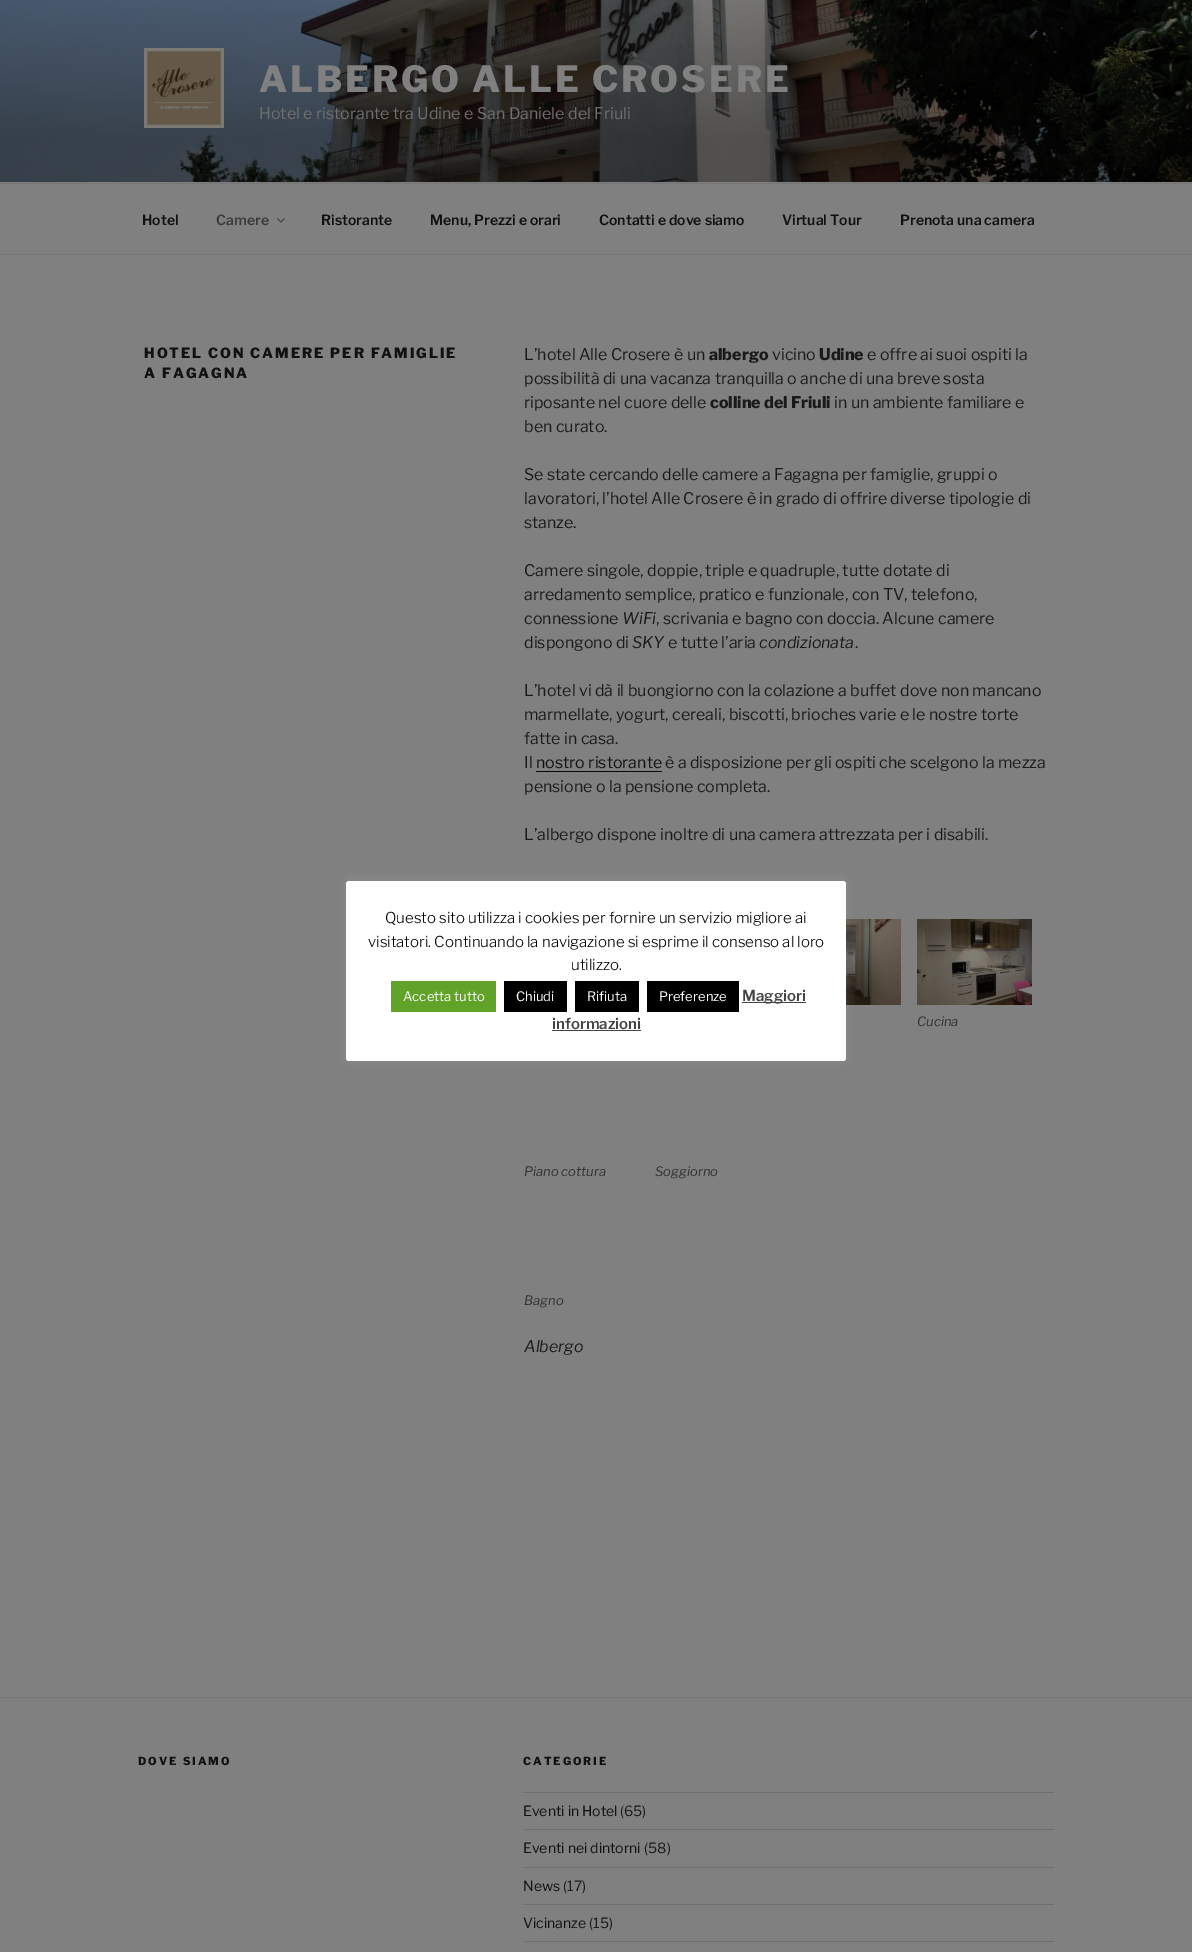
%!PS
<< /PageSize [1192 1952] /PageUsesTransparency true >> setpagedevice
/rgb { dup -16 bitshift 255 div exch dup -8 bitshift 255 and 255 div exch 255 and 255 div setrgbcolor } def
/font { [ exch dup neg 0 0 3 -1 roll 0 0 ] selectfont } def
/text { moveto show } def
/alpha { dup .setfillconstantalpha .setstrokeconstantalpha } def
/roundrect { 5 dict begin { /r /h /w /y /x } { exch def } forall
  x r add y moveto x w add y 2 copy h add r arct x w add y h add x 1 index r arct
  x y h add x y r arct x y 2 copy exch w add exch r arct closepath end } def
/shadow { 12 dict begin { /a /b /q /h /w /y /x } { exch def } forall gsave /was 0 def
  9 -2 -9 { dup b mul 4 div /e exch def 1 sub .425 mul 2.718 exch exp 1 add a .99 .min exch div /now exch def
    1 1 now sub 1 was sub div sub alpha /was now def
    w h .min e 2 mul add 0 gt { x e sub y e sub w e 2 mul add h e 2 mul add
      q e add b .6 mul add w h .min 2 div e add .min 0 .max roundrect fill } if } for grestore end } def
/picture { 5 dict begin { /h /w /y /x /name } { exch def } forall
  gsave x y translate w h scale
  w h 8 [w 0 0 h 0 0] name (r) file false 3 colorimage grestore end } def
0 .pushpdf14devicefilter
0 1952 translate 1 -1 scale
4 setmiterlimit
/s1 { /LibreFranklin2-Thin 16 font 16#6E6E6F rgb } def
/s2 { /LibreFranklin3-Thin 14 font 16#111111 rgb } def
/s3 { /LibreFranklin3-Thin 14 font 16#3B3B3B rgb } def
/s4 { /LibreFranklin2-Thin 16 font 16#1A1A1A rgb } def
/s5 { /LibreFranklin-Thin 16 font 16#1A1A1A rgb } def
/s6 { /LibreFranklin-ThinItalic 16 font 16#1A1A1A rgb } def
/s7 { /LibreFranklin2-Thin 16 font 16#111111 rgb } def
/s8 { /LibreFranklin-ThinItalic 13 font 16#333333 rgb } def
/s9 { /LibreFranklin2-Thin 14 font 16#111111 rgb } def
/s10 { /LibreFranklin2-Thin 14 font 16#1A1A1A rgb } def
/s11 { /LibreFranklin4-Thin 15 font 16#000000 rgb } def
/s12 { /LibreFranklin2-Thin 13 font 16#FFFFFF rgb } def
/s13 { /LibreFranklin3-Thin 15 font 16#444444 rgb } def
16#808080 rgb
0 0 1192 1952 rectfill
16#7D7D7D rgb
0 182 1192 1 rectfill
(pic1.raw) 0 0 1192 182 picture
(pic2.raw) 144 48 80 80 picture
/LibreFranklin-Thin 36 font
16#808080 rgb
259 92 moveto 2.9 0 (ALBERGO ALLE CROSERE) ashow
s1
(Hotel e ristorante tra Udine e San Daniele del Friuli) 259 119 text
16#777777 rgb
0 183 1192 1 rectfill
0 254 1192 1 rectfill
s2
(Hotel) 142 225 text
s3
(Camere) 216 225 text
(pic3.raw) 277 218 8 5 picture
s2
(Ristorante) 321 225 text
(Menu, Prezzi e orari) 430 225 text
(Contatti e dove siamo) 599 225 text
(Virtual Tour) 782 225 text
(Prenota una camera) 900 225 text
/LibreFranklin-Thin 14 font
144 358 moveto 1.95 0 (HOTEL CON CAMERE PER FAMIGLIE) ashow
144 378 moveto 1.95 0 (A FAGAGNA) ashow
s4
(L’hotel Alle Crosere è un) 524 360 text
s5
(albergo) 709 360 text
s4
(vicino) 772 360 text
s5
(Udine) 819 360 text
s4
(e offre ai suoi ospiti la) 867 360 text
(possibilità di una vacanza tranquilla o anche di una breve sosta) 524 384 text
(riposante nel cuore delle) 524 408 text
s5
(colline del Friuli) 710 408 text
s4
(in un ambiente familiare e) 834 408 text
(ben curato.) 524 432 text
(Se state cercando delle camere a Fagagna per famiglie, gruppi o) 524 480 text
(lavoratori, l’hotel Alle Crosere è in grado di offrire diverse tipologie di) 524 504 text
(stanze.) 524 528 text
(Camere singole, doppie, triple e quadruple, tutte dotate di) 524 576 text
(arredamento semplice, pratico e funzionale, con TV, telefono,) 524 600 text
(connessione) 524 624 text
s6
(WiFi) 622 624 text
s4
(, scrivania e bagno con doccia. Alcune camere) 656 624 text
(dispongono di) 524 648 text
s6
(SKY) 632 648 text
s4
(e tutte l’aria) 668 648 text
s6
(condizionata) 759 648 text
s4
(.) 855 648 text
(L’hotel vi dà il buongiorno con la colazione a buffet dove non mancano) 524 696 text
(marmellate, yogurt, cereali, biscotti, brioches varie e le nostre torte) 524 720 text
(fatte in casa.) 524 744 text
(Il) 524 768 text
s7
(nostro ristorante) 536 768 text
16#080808 rgb
536 771 126 1 rectfill
s4
(è a disposizione per gli ospiti che scelgono la mezza) 665 768 text
(pensione o la pensione completa.) 524 792 text
(L’albergo dispone inoltre di una camera attrezzata per i disabili.) 524 840 text
(pic4.raw) 846 919 55 86 picture
(pic5.raw) 917 919 115 86 picture
s8
(Cucina) 917 1026 text
(Piano cottura) 524 1176 text
(Soggiorno) 655 1176 text
(Bagno) 524 1305 text
s6
(Albergo) 524 1352 text
16#777777 rgb
0 1697 1192 1 rectfill
/LibreFranklin-Thin 11 font
16#111111 rgb
138 1765 moveto 2 0 (DOVE SIAMO) ashow
523 1765 moveto 2 0 (CATEGORIE) ashow
16#6F6F6F rgb
523 1792 531 1 rectfill
523 1829 531 1 rectfill
s9
(Eventi in Hotel) 523 1816 text
s10
(\(65\)) 620 1816 text
16#6F6F6F rgb
523 1867 531 1 rectfill
s9
(Eventi nei dintorni) 523 1853 text
s10
(\(58\)) 644 1853 text
16#6F6F6F rgb
523 1904 531 1 rectfill
s9
(News) 523 1891 text
s10
(\(17\)) 563 1891 text
16#6F6F6F rgb
523 1941 531 1 rectfill
s9
(Vicinanze) 523 1928 text
s10
(\(15\)) 589 1928 text
16#ACABAB rgb
346 880 500 180 3 5 0.3 shadow
16#FFFFFF rgb
346 881 500 180 3 roundrect fill
s11
(Questo sito utilizza i cookies per fornire un servizio migliore ai) 385 923 text
(visitatori. Continuando la navigazione si esprime il consenso al loro) 368 947 text
(utilizzo.) 571 970 text
16#61A229 rgb
391 981 105 31 rectfill
s12
(Accetta tutto) 403 1001 text
16#000000 rgb
504 981 63 31 rectfill
s12
(Chiudi) 516 1001 text
16#000000 rgb
575 981 64 31 rectfill
s12
(Rifiuta) 587 1001 text
16#000000 rgb
647 981 92 31 rectfill
s12
(Preferenze) 659 1001 text
16#444444 rgb
742 1002 64 1 rectfill
s13
(Maggiori) 742 1001 text
(informazioni) 552 1029 text
552 1030 89 1 rectfill
.poppdf14devicefilter showpage
